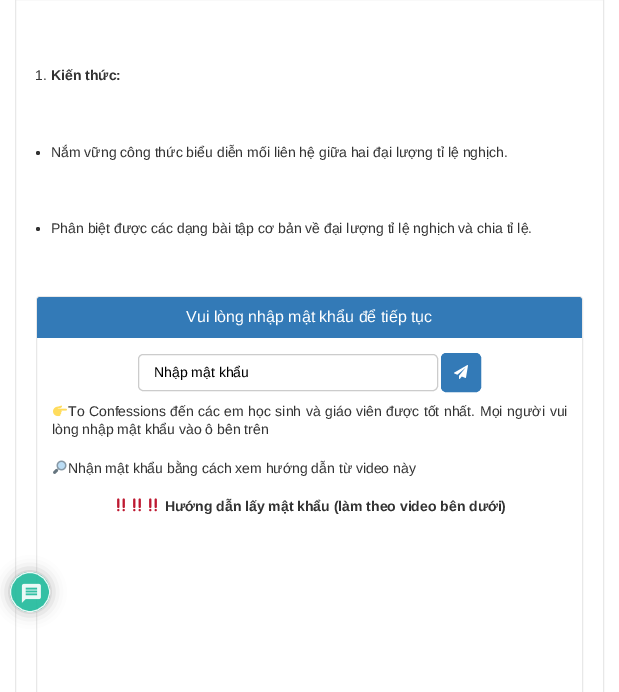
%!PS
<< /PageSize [619 692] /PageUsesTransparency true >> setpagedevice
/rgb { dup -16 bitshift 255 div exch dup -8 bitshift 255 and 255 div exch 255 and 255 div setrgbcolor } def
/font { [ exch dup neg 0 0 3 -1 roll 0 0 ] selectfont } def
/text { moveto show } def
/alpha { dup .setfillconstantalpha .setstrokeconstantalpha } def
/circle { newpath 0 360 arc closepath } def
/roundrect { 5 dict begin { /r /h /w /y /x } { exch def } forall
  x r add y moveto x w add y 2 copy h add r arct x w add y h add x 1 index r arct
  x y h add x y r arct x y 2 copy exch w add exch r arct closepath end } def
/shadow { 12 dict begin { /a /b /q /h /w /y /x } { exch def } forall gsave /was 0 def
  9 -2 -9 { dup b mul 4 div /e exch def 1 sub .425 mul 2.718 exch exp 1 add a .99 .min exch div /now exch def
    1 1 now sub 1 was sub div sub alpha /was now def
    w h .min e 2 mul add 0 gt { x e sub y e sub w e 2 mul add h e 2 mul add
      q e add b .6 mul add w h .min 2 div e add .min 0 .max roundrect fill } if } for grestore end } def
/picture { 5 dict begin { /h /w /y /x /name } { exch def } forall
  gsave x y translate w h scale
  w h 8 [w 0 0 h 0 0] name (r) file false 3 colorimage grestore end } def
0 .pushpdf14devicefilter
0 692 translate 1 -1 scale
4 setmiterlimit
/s1 { /LiberationSans-Regular 14 font 16#333333 rgb } def
/s2 { /LiberationSans-Bold 14 font 16#333333 rgb } def
/s3 { /LiberationSans-Regular 16 font 16#FFFFFF rgb } def
/s4 { /LiberationSans-Regular 14 font 16#000000 rgb } def
16#FFFFFF rgb
0 0 619 692 rectfill
16#E8E8E8 rgb
15.5 -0.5 588 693 rectstroke
s1
(1.) 35 80 text
s2
(Kiến thức:) 51 80 text
38 153 2 circle fill
s1
(Nắm vững công thức biểu diễn mối liên hệ giữa hai đại lượng tỉ lệ nghịch.) 51 157 text
38 229 2 circle fill
(Phân biệt được các dạng bài tập cơ bản về đại lượng tỉ lệ nghịch và chia tỉ lệ.) 51 233 text
16#E8E8E8 rgb
36.5 296.5 546 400 3.5 roundrect stroke
16#337AB7 rgb
40 297 moveto 579 297 lineto 580.5 297 582 298.5 582 300 curveto 582 338 lineto 37 338 lineto 37 300 lineto 37 298.5 38.5 297 40 297 curveto closepath fill
s3
(Vui lòng nhập mật khẩu để tiếp tục) 186 322 text
16#CCCCCC rgb
138.5 354.5 299 36 4.5 roundrect stroke
s4
(Nhập mật khẩu) 154 377 text
16#337AB7 rgb
441.5 353.5 39 38 4.5 roundrect gsave fill grestore
stroke
(pic1.raw) 454 365 14 14 picture
(pic2.raw) 53 405 14 12 picture
16#333333 rgb
68 416 moveto 0.6 0 32 (To Confessions đến các em học sinh và giáo viên được tốt nhất.) widthshow
480 416 moveto 1 0 32 (Mọi người vui) widthshow
(lòng nhập mật khẩu vào ô bên trên) 52 434 text
(pic3.raw) 53 460 14 14 picture
(Nhận mật khẩu bằng cách xem hướng dẫn từ video này) 68 473 text
(pic4.raw) 117 498 8 14 picture
(pic4.raw) 133 498 8 14 picture
(pic4.raw) 149 498 8 14 picture
s2
(Hướng dẫn lấy mật khẩu \(làm theo video bên dưới\)) 165 511 text
gsave
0 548 moveto 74 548 lineto 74 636 lineto 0 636 lineto closepath 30 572 moveto 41 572 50 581 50 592 curveto 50 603 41 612 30 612 curveto 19 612 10 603 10 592 curveto 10 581 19 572 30 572 curveto closepath eoclip newpath
16#AAAAAA rgb
10 572 40 40 20 7.5 0.9 shadow
grestore
0.9 alpha
16#1DB99A rgb
30 592 20 circle fill
16#FFFFFF rgb
30 592 19.5 circle stroke
1 alpha
(pic5.raw) 21 583 20 20 picture
.poppdf14devicefilter showpage
